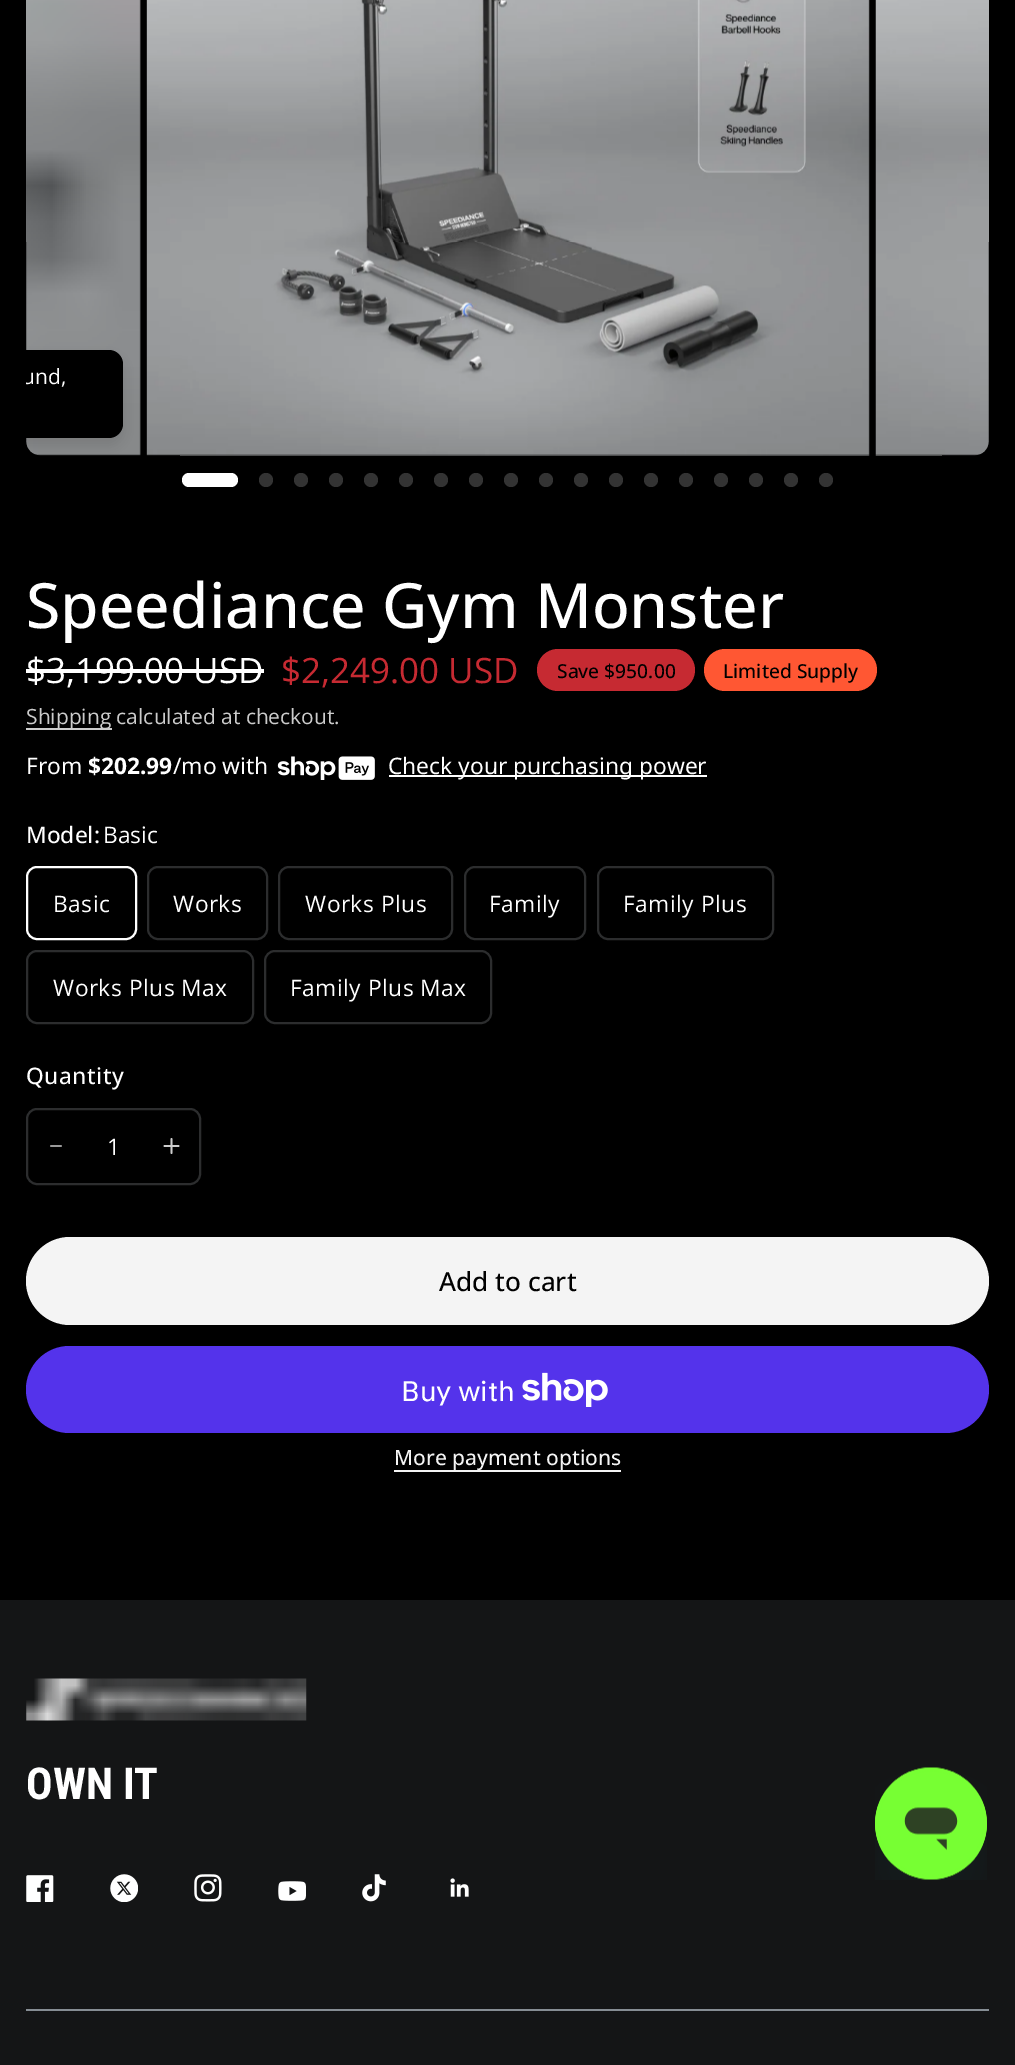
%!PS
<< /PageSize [1015 2065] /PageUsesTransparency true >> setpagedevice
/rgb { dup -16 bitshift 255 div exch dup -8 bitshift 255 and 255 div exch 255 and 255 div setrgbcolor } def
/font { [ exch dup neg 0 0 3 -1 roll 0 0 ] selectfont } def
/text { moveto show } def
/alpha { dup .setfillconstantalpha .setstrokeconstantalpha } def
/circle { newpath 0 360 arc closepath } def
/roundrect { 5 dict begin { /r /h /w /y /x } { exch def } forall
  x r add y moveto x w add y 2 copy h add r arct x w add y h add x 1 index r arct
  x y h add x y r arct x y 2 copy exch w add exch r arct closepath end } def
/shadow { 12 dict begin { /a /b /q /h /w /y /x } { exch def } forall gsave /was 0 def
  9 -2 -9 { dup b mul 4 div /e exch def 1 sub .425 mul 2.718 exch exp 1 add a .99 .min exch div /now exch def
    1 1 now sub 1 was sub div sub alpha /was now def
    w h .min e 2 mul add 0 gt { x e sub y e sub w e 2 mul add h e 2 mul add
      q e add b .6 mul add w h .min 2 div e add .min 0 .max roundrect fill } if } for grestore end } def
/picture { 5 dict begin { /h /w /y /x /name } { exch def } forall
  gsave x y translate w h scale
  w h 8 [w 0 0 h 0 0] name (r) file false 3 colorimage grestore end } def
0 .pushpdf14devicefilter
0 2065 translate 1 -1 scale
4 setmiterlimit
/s1 { /OpenSans-Regular 21 font 16#FFFFFF rgb } def
/s2 { /OpenSans-Medium 62.5 font 16#FFFFFF rgb } def
/s3 { /OpenSans-Regular 35 font 16#FFFFFF rgb } def
/s4 { /OpenSans-Regular 35 font 16#C62A32 rgb } def
/s5 { /OpenSans-Medium 19.25 font 16#000000 rgb } def
/s6 { /OpenSans-Regular 21 font 16#CCCCCC rgb } def
/s7 { /NotoSans-Regular 22.75 font 16#FFFFFF rgb } def
/s8 { /NotoSans-Bold 22.75 font 16#FFFFFF rgb } def
/s9 { /OpenSans-Medium 22.75 font 16#FFFFFF rgb } def
/s10 { /OpenSans-Regular 22.75 font 16#FFFFFF rgb } def
/s11 { /OpenSans-Medium 26.25 font 16#000000 rgb } def
/s12 { /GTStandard-Regular 28 font 16#FFFFFF rgb } def
/s13 { /OpenSans-Medium 21 font 16#F4F4F4 rgb } def
/s14 { /RobotoCondensed-Bold 44 font 16#FFFFFF rgb } def
16#000000 rgb
0 0 1015 2065 rectfill
(pic1.raw) 26 0 115 456 picture
gsave
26 -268 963 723 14 roundrect clip newpath
-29 357 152 88 14 5 0.08 shadow
grestore
26 350 moveto 109 350 lineto 116.5 350 123 356.5 123 364 curveto 123 424 lineto 123 431.5 116.5 438 109 438 curveto 26 438 lineto closepath fill
gsave
26 -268 963 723 14 roundrect clip newpath
s1
(und,) 22 384 text
grestore
(pic2.raw) 146 0 724 456 picture
(pic3.raw) 875 0 114 456 picture
16#FFFFFF rgb
182 473 56 14 7 roundrect fill
16#333333 rgb
266 480 7 circle fill
301 480 7 circle fill
336 480 7 circle fill
371 480 7 circle fill
406 480 7 circle fill
441 480 7 circle fill
476 480 7 circle fill
511 480 7 circle fill
546 480 7 circle fill
581 480 7 circle fill
616 480 7 circle fill
651 480 7 circle fill
686 480 7 circle fill
721 480 7 circle fill
756 480 7 circle fill
791 480 7 circle fill
826 480 7 circle fill
s2
(Speediance Gym Monster) 26 628 text
s3
($3,199.00 USD) 26 683 text
26 669 238 4 rectfill
s4
($2,249.00 USD) 281 683 text
537 649 158 42 21 roundrect fill
s5
(Save $950.00) 557 678 text
16#FF5733 rgb
704 649 173 42 21 roundrect fill
s5
(Limited Supply) 723 678 text
16#CCCCCC rgb
26 728 86 2 rectfill
s6
(Shipping calculated at checkout.) 26 724 text
s7
(From) 26 774 text
s8
($202.99) 88 774 text
s7
(/mo with) 173 774 text
(pic4.raw) 277 756 98 24 picture
389 775 318 2 rectfill
(Check your purchasing power) 388 774 text
s9
(Model:) 26 843 text
s10
(Basic) 103 843 text
2 setlinewidth
27 867 109 72 10 roundrect stroke
53 912 moveto 0.5 0 (Basic) ashow
16#2C2D2E rgb
148 867 119 72 10 roundrect stroke
16#FFFFFF rgb
173 912 moveto 0.5 0 (Works) ashow
16#2C2D2E rgb
279 867 173 72 10 roundrect stroke
16#FFFFFF rgb
305 912 moveto 0.5 0 (Works Plus) ashow
16#2C2D2E rgb
465 867 120 72 10 roundrect stroke
16#FFFFFF rgb
489 912 moveto 0.5 0 (Family) ashow
16#2C2D2E rgb
598 867 175 72 10 roundrect stroke
16#FFFFFF rgb
623 912 moveto 0.5 0 (Family Plus) ashow
16#2C2D2E rgb
27 951 226 72 10 roundrect stroke
16#FFFFFF rgb
53 996 moveto 0.5 0 (Works Plus Max) ashow
16#2C2D2E rgb
265 951 226 72 10 roundrect stroke
16#FFFFFF rgb
290 996 moveto 0.5 0 (Family Plus Max) ashow
/OpenSans-Medium 22.75 font
26 1084 moveto 0.5 0 (Quantity) ashow
16#2C2D2E rgb
27 1109 173 75 10 roundrect stroke
16#999999 rgb
1.8 setlinewidth
1 setlinecap
1 setlinejoin
51 1146 moveto 61 1146 lineto stroke
s10
(1) 107 1155 text
16#CCCCCC rgb
164.5 1146 moveto 178.5 1146 lineto 171.5 1139 moveto 171.5 1153 lineto stroke
16#F4F4F4 rgb
26 1237 963 88 44 roundrect fill
s11
(Add to cart) 439 1291 text
16#5433EB rgb
26 1346 963 87 43.5 roundrect fill
s12
(Buy with) 401 1401 text
(pic5.raw) 522 1372 86 35 picture
16#F4F4F4 rgb
394 1470 227 2 rectfill
s13
(More payment options) 394 1465 text
16#141516 rgb
0 1600 1015 465 rectfill
(pic6.raw) 26 1678 281 43 picture
s14
(OWN IT) 26 1799 text
(pic7.raw) 26 1875 28 27 picture
(pic8.raw) 110 1874 28 28 picture
(pic9.raw) 194 1874 28 28 picture
(pic10.raw) 278 1881 28 20 picture
(pic11.raw) 362 1874 24 28 picture
(pic12.raw) 450 1878 19 19 picture
16#868D94 rgb
26 2009 963 2 rectfill
(pic13.raw) 875 1767 112 113 picture
.poppdf14devicefilter showpage
